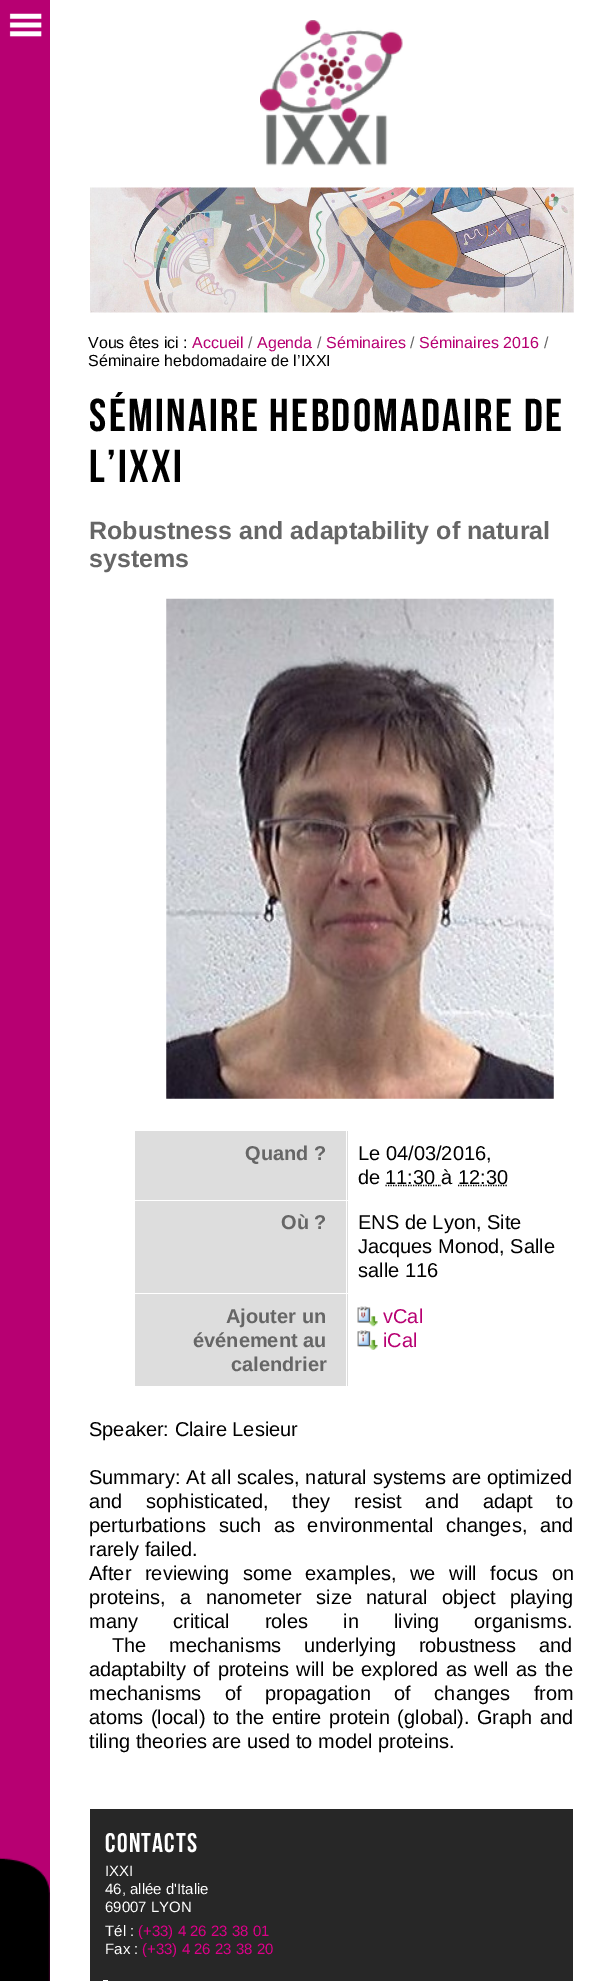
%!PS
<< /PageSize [602 1981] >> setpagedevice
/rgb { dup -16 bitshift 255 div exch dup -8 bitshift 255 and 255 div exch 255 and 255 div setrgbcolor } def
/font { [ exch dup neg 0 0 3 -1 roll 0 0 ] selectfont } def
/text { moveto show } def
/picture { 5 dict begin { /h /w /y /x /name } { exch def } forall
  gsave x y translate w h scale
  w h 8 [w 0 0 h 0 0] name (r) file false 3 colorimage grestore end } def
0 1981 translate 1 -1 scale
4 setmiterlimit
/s1 { /LiberationSans-Regular 16 font 16#000000 rgb } def
/s2 { /LiberationSans-Regular 16 font 16#B70072 rgb } def
/s3 { /LiberationSans-Regular 16 font 16#666666 rgb } def
/s4 { /LiberationSans-Bold 25 font 16#666666 rgb } def
/s5 { /LiberationSans-Bold 20 font 16#666666 rgb } def
/s6 { /LiberationSans-Regular 20 font 16#000000 rgb } def
/s7 { /LiberationSans-Regular 20 font 16#B70072 rgb } def
/s8 { /LiberationSans-Regular 15 font 16#FFFFFF rgb } def
/s9 { /LiberationSans-Regular 15 font 16#DB0088 rgb } def
16#FFFFFF rgb
0 0 602 1981 rectfill
16#B70072 rgb
0 0 50 1981 rectfill
(pic1.raw) 0 1857 50 124 picture
(pic2.raw) 9 13 33 24 picture
(pic3.raw) 260 20 143 146 picture
(pic4.raw) 90 187 484 126 picture
s1
(Vous êtes ici :) 88 348 text
s2
(Accueil) 192 348 text
s3
(/) 248 348 text
s2
(Agenda) 257 348 text
s3
(/) 317 348 text
s2
(Séminaires) 326 348 text
s3
(/) 410 348 text
s2
(Séminaires 2016) 419 348 text
s3
(/) 544 348 text
s1
(Séminaire hebdomadaire de l’IXXI) 88 366 text
/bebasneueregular-Regular 46 font
89 431 moveto 2.3 0 (Séminaire hebdomadaire de) ashow
89 482 moveto 2.3 0 (l’IXXI) ashow
s4
(Robustness and adaptability of natural) 89 539 text
(systems) 89 567 text
(pic5.raw) 166 598 388 501 picture
16#DDDDDD rgb
135 1131 213 69 rectfill
s5
(Quand ?) 245 1160 text
s6
(Le 04/03/2016,) 358 1160 text
(de) 358 1184 text
1.2 setlinewidth
[1.25 1.25] 0 setdash
385.5 1185.5 moveto 435.5 1185.5 lineto stroke
(11:30 à) 385 1184 text
[] 0 setdash
435.5 1185.5 moveto 437 1185.5 lineto 438 1185.5 moveto 439.5 1185.5 lineto 440.5 1185.5 moveto 441 1185.5 lineto stroke
[1.25 1.25] 0 setdash
458 1185.5 moveto 508 1185.5 lineto stroke
(12:30) 458 1184 text
16#DDDDDD rgb
135 1201 213 92 rectfill
s5
(Où ?) 281 1229 text
s6
(ENS de Lyon, Site) 358 1229 text
(Jacques Monod, Salle) 358 1253 text
(salle 116) 358 1277 text
16#DDDDDD rgb
135 1294 213 92 rectfill
s5
(Ajouter un) 226 1323 text
(événement au) 193 1347 text
(calendrier) 231 1371 text
16#FFFFFF rgb
346 1130 1 258 rectfill
(pic6.raw) 357 1306 21 21 picture
s7
(vCal) 383 1323 text
(pic7.raw) 357 1330 21 20 picture
(iCal) 383 1347 text
s6
(Speaker: Claire Lesieur) 89 1436 text
89 1484 moveto 0.5 0 32 (Summary: At all scales, natural systems are optimized) widthshow
89 1508 moveto 18.25 0 32 (and sophisticated, they resist and adapt to) widthshow
89 1532 moveto 7.25 0 32 (perturbations such as environmental changes, and) widthshow
(rarely failed.) 89 1556 text
89 1580 moveto 8 0 32 (After reviewing some examples, we will focus on) widthshow
89 1604 moveto 9 0 32 (proteins, a nanometer size natural object playing) widthshow
89 1628 moveto 29.5 0 32 (many critical roles in living organisms.) widthshow
112 1652 moveto 17 0 32 (The mechanisms underlying robustness and) widthshow
89 1676 moveto 2 0 32 (adaptabilty of proteins will be explored as well as the) widthshow
89 1700 moveto 18 0 32 (mechanisms of propagation of changes from) widthshow
89 1724 moveto 1.75 0 32 (atoms \(local\) to the entire protein \(global\). Graph and) widthshow
(tiling theories are used to model proteins.) 89 1748 text
16#272727 rgb
90 1809 483 172 rectfill
/bebasneueregular-Regular 27 font
16#FFFFFF rgb
105 1852 moveto 1.25 0 (Contacts) ashow
s8
(IXXI) 105 1876 text
(46, allée d'Italie) 105 1894 text
(69007 LYON) 105 1912 text
(Tél :) 105 1936 text
s9
(\(+33\) 4 26 23 38 01) 138 1936 text
s8
(Fax :) 105 1954 text
s9
(\(+33\) 4 26 23 38 20) 142 1954 text
16#FFFFFF rgb
103 1980 5 1 rectfill
showpage
